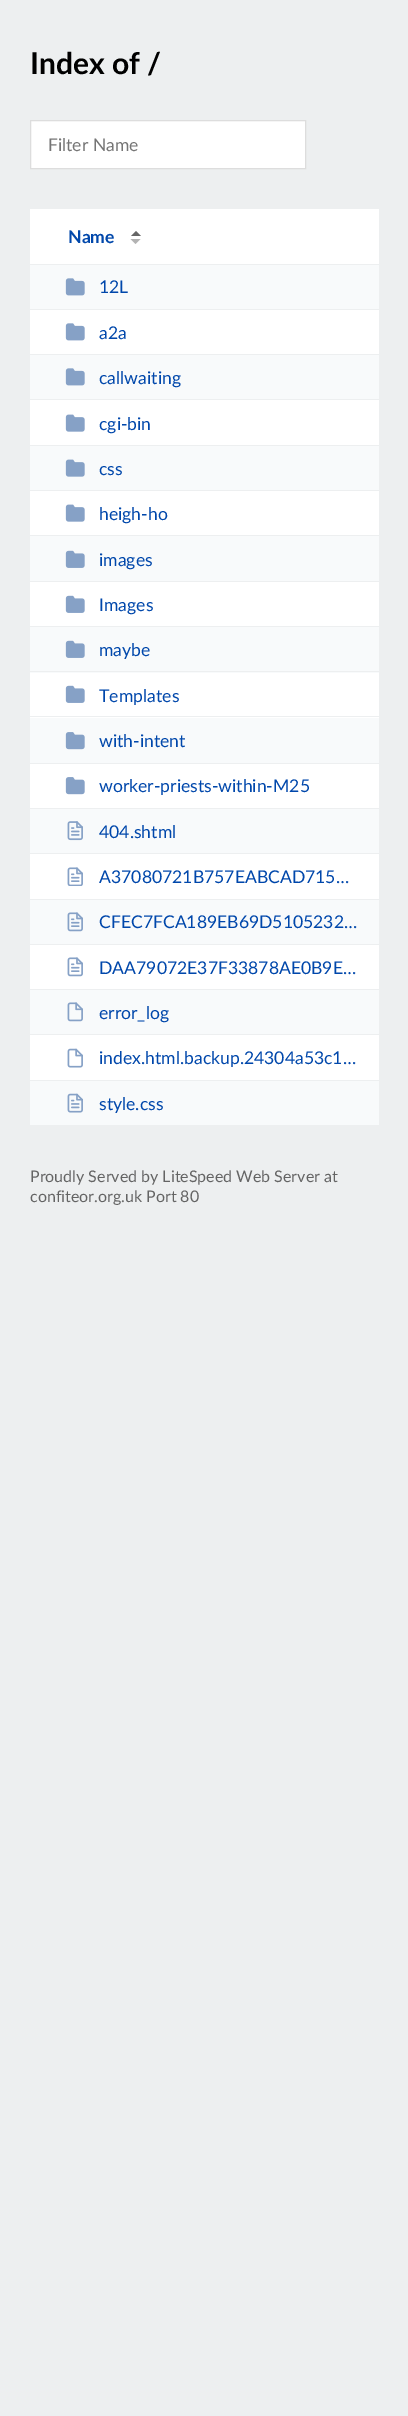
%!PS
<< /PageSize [408 2416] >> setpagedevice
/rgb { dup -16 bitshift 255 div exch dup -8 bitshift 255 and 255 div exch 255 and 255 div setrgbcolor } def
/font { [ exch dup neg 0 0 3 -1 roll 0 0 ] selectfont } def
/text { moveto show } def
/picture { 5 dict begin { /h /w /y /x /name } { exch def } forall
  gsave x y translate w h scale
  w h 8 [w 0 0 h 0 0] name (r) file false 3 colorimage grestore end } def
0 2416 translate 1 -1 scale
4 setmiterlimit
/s1 { /Lato-Bold 30 font 16#000000 rgb } def
/s2 { /Lato-Regular 17.5 font 16#757575 rgb } def
/s3 { /Lato-Bold 17.6 font 16#0047AB rgb } def
/s4 { /Lato-Regular 17.6 font 16#0047AB rgb } def
/s5 { /Lato-Regular 16 font 16#646464 rgb } def
16#EDEFF0 rgb
0 0 408 2416 rectfill
s1
(Index of /) 30 74 text
16#FFFFFF rgb
30.5 120.5 moveto 305.5 120.5 lineto 305.5 168.5 lineto 30.5 168.5 lineto closepath gsave fill grestore
16#DDDDDD rgb
stroke
s2
(Filter Name) 48 151 text
16#FFFFFF rgb
30 209 349 871 rectfill
s3
(Name) 68 243 text
16#666666 rgb
141 236 moveto 131 236 lineto 136 231 lineto closepath fill
16#B3B3B3 rgb
130.5 239 moveto 140.5 239 lineto 135.5 244 lineto closepath fill
16#F8FAFB rgb
30 265 349 44 rectfill
16#EDEFF0 rgb
30 264 349 1 rectfill
30 309 349 1 rectfill
(pic1.raw) 65 278 20 18 picture
s4
(12L) 99 293 text
(pic2.raw) 65 323 20 18 picture
(a2a) 99 339 text
16#F8FAFB rgb
30 355 349 44 rectfill
16#EDEFF0 rgb
30 354 349 1 rectfill
30 399 349 1 rectfill
(pic1.raw) 65 368 20 18 picture
s4
(callwaiting) 99 384 text
(pic3.raw) 65 414 20 18 picture
(cgi-bin) 99 430 text
16#F8FAFB rgb
30 446 349 44 rectfill
16#EDEFF0 rgb
30 445 349 1 rectfill
30 490 349 1 rectfill
(pic4.raw) 65 459 20 18 picture
s4
(css) 99 475 text
(pic3.raw) 65 504 20 18 picture
(heigh-ho) 99 520 text
16#F8FAFB rgb
30 536 349 45 rectfill
16#EDEFF0 rgb
30 535 349 1 rectfill
30 581 349 1 rectfill
(pic5.raw) 65 550 20 18 picture
s4
(images) 99 566 text
(pic6.raw) 65 595 20 18 picture
(Images) 99 611 text
16#F8FAFB rgb
30 627 349 46 rectfill
16#EDEFF0 rgb
30 626 349 1 rectfill
30 671 349 1 rectfill
(pic5.raw) 65 640 20 18 picture
s4
(maybe) 99 656 text
(pic6.raw) 65 685 20 18 picture
(Templates) 99 702 text
16#F8FAFB rgb
30 718 349 45 rectfill
16#EDEFF0 rgb
30 716 349 1 rectfill
30 763 349 1 rectfill
(pic7.raw) 65 732 20 18 picture
s4
(with-intent) 99 747 text
(pic8.raw) 65 777 20 18 picture
(worker-priests-within-M25) 99 792 text
16#F8FAFB rgb
30 809 349 44 rectfill
16#EDEFF0 rgb
30 808 349 1 rectfill
30 853 349 1 rectfill
(pic9.raw) 67 821 16 20 picture
s4
(404.shtml) 99 838 text
(pic10.raw) 67 867 16 19 picture
(A37080721B757EABCAD715…) 99 883 text
16#F8FAFB rgb
30 900 349 44 rectfill
16#EDEFF0 rgb
30 899 349 1 rectfill
30 944 349 1 rectfill
(pic11.raw) 67 912 16 20 picture
s4
(CFEC7FCA189EB69D5105232…) 99 928 text
(pic12.raw) 67 957 16 20 picture
(DAA79072E37F33878AE0B9E…) 99 974 text
16#F8FAFB rgb
30 990 349 44 rectfill
16#EDEFF0 rgb
30 989 349 1 rectfill
30 1034 349 1 rectfill
(pic13.raw) 67 1002 16 20 picture
s4
(error_log) 99 1019 text
(pic14.raw) 67 1048 16 20 picture
(index.html.backup.24304a53c1…) 99 1064 text
16#F8FAFB rgb
30 1081 349 44 rectfill
(pic15.raw) 67 1093 16 20 picture
s4
(style.css) 99 1110 text
s5
(Proudly Served by LiteSpeed Web Server at) 30 1182 text
(confiteor.org.uk Port 80) 30 1202 text
showpage
